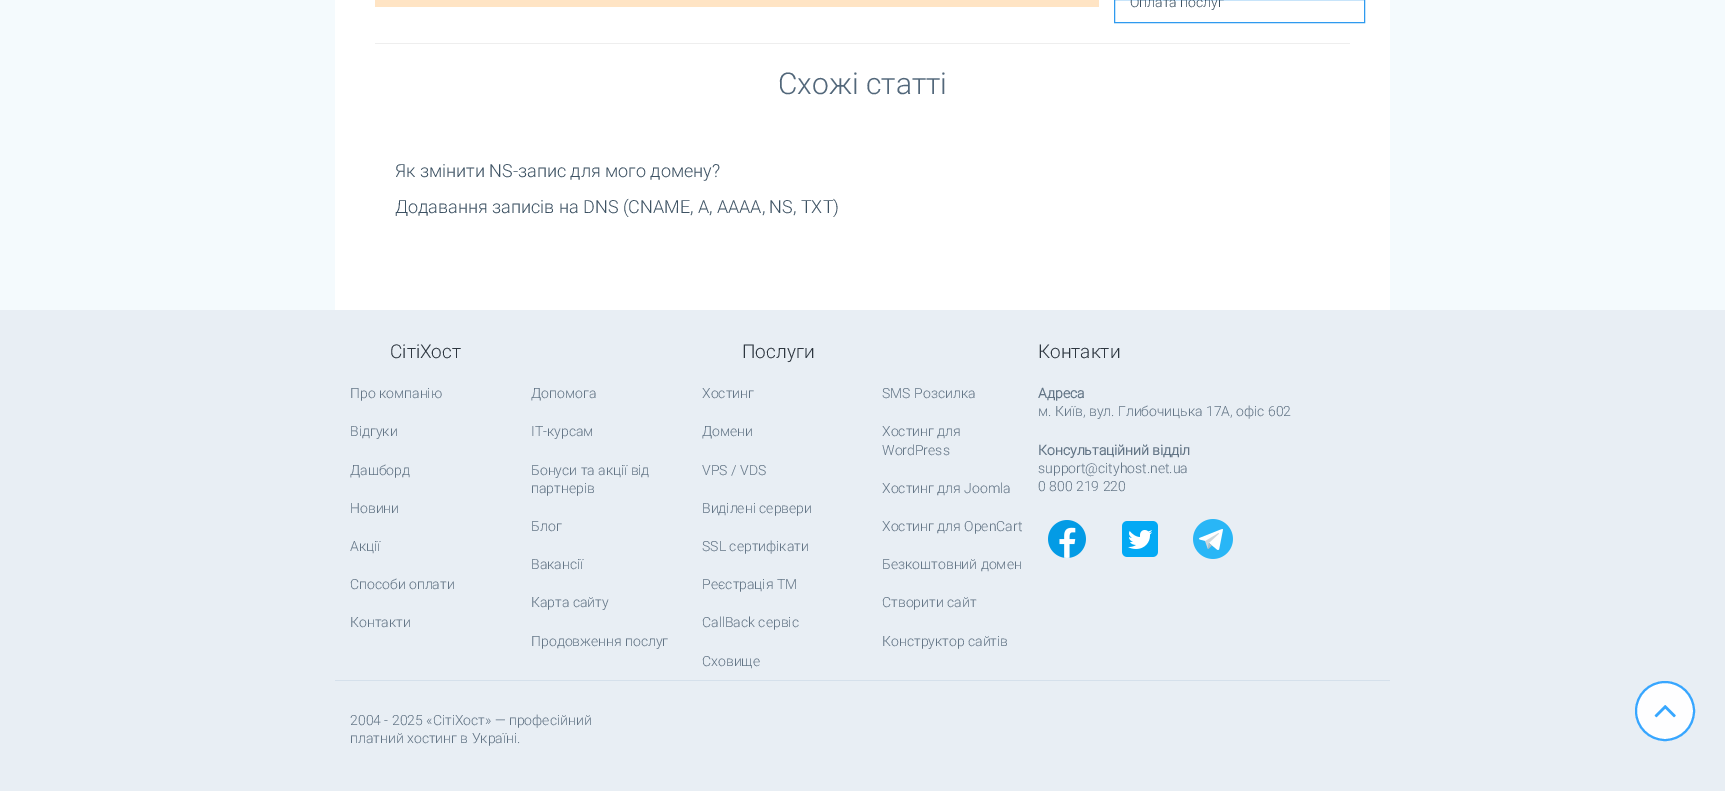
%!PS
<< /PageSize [1725 791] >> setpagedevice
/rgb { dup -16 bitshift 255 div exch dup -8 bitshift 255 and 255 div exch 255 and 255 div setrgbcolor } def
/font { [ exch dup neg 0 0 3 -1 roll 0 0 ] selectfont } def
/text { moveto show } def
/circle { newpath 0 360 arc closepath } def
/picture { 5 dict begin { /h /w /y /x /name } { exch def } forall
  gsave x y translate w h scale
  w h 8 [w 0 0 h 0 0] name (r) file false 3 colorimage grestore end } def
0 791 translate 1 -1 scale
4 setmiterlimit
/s1 { /Roboto-Light 14 font 16#3D5263 rgb } def
/s2 { /Roboto-Light 30 font 16#52677A rgb } def
/s3 { /Roboto-Light 18 font 16#3D5263 rgb } def
/s4 { /Roboto-Light 19 font 16#2D363F rgb } def
/s5 { /Roboto-Light 14 font 16#627485 rgb } def
/s6 { /Roboto-Bold 14 font 16#627485 rgb } def
16#F4FAFD rgb
0 0 1725 791 rectfill
16#FFFFFF rgb
335 0 1055 310 rectfill
16#FFE4C4 rgb
375 0 724 7 rectfill
16#2E9AEF rgb
1114.5 -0.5 250 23 rectstroke
s1
(Оплата послуг) 1130 7 text
16#EEEEEE rgb
375 43 975 1 rectfill
s2
(Схожі статті) 778 94 text
s3
(Як змінити NS-запис для мого домену?) 395 177 text
(Додавання записів на DNS \(CNAME, A, AAAA, NS, TXT\)) 395 213 text
16#E8EEF4 rgb
0 310 1725 481 rectfill
s4
(СітіХост) 390 358 text
s5
(Про компанію) 350 398 text
(Допомога) 531 398 text
(Відгуки) 350 436 text
(IT-курсам) 531 436 text
(Дашборд) 350 475 text
(Бонуси та акції від) 531 475 text
(партнерів) 531 493 text
(Новини) 350 513 text
(Блог) 531 531 text
(Акції) 350 551 text
(Вакансії) 531 569 text
(Способи оплати) 350 589 text
(Карта сайту) 531 607 text
(Контакти) 350 627 text
(Продовження послуг) 531 646 text
s4
(Послуги) 742 358 text
s5
(Хостинг) 702 398 text
(SMS Розсилка) 882 398 text
(Домени) 702 436 text
(Хостинг для) 882 436 text
(WordPress) 882 455 text
(VPS / VDS) 702 475 text
(Хостинг для Joomla) 882 493 text
(Виділені сервери) 702 513 text
(Хостинг для OpenCart) 882 531 text
(SSL сертифікати) 702 551 text
(Безкоштовний домен) 882 569 text
(Реєстрація ТМ) 702 589 text
(Створити сайт) 882 607 text
(CallBack сервіс) 702 627 text
(Конструктор сайтів) 882 646 text
(Сховище) 702 666 text
s4
(Контакти) 1038 358 text
s6
(Адреса) 1038 398 text
s5
(м. Київ, вул. Глибочицька 17А, офіс 602) 1038 416 text
s6
(Консультаційний відділ) 1038 455 text
s5
(support@cityhost.net.ua) 1038 473 text
(0 800 219 220) 1038 491 text
(pic1.raw) 1048 520 38 38 picture
(pic2.raw) 1122 521 36 36 picture
(pic3.raw) 1193 519 40 40 picture
16#D5E0EB rgb
335 680 1055 1 rectfill
s5
(2004 - 2025 «СітіХост» — професійний) 350 725 text
(платний хостинг в Україні.) 350 743 text
16#FEFEFF rgb
1665 711 29 circle gsave fill grestore
16#37A6FF rgb
2 setlinewidth
stroke
(pic4.raw) 1654 705 22 13 picture
showpage
